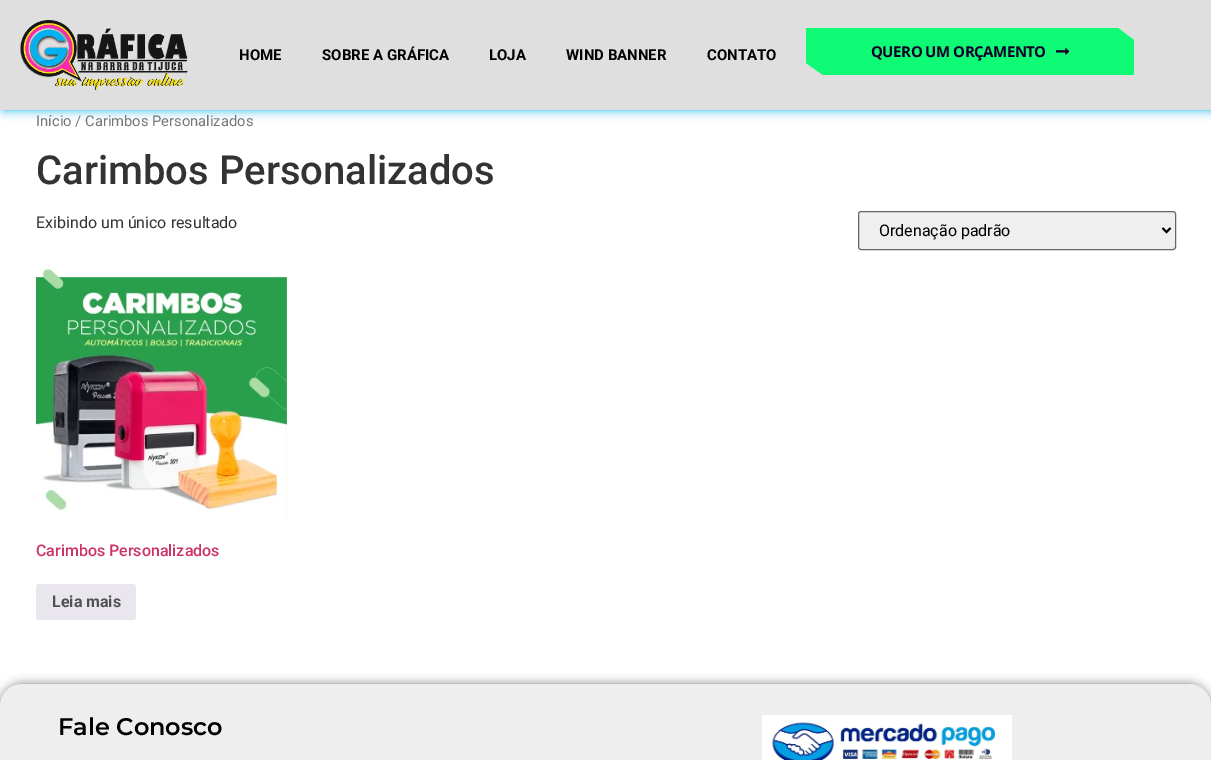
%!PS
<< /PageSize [1211 760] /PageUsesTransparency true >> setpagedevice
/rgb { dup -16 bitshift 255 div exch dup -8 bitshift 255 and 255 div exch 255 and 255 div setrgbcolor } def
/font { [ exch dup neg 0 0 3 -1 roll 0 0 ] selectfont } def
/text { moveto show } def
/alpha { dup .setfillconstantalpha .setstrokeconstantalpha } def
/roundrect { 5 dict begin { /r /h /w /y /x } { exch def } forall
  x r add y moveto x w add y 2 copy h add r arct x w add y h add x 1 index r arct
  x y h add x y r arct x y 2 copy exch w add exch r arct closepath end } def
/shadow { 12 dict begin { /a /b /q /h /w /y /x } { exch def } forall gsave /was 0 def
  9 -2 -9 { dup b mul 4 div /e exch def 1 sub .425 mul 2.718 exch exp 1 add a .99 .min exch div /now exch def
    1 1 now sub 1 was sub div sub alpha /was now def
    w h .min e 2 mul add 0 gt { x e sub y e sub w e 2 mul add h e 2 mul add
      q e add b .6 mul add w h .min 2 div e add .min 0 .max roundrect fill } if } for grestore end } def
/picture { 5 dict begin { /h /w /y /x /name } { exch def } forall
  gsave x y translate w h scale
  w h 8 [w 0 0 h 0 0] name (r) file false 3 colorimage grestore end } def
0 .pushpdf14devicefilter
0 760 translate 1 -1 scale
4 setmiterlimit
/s1 { /Roboto-Bold 15 font 16#000000 rgb } def
/s2 { /Roboto-Regular 14.75 font 16#767676 rgb } def
/s3 { /Roboto-Medium 40 font 16#333333 rgb } def
/s4 { /Roboto-Regular 16 font 16#333333 rgb } def
/s5 { /Roboto-Regular 16 font 16#000000 rgb } def
/s6 { /Roboto-Medium 16 font 16#CC3366 rgb } def
/s7 { /Roboto-Bold 16 font 16#515151 rgb } def
/s8 { /Montserrat-SemiBold 24 font 16#000000 rgb } def
16#FFFFFF rgb
0 0 1211 760 rectfill
16#09AFE6 rgb
4 0 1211 110 0 5 0.96 shadow
16#DFDFDF rgb
0 0 1211 110 rectfill
(pic1.raw) 20 20 168 70 picture
s1
(HOME) 239 60 text
(SOBRE A GRÁFICA) 322 60 text
(LOJA) 489 60 text
(WIND BANNER) 566 60 text
(CONTATO) 707 60 text
16#10FB75 rgb
1118 28 moveto 1134 40 lineto 1134 75 lineto 823 75 lineto 806 63 lineto 806 28 lineto closepath fill
/OpenSans-Bold 15 font
16#12002A rgb
871 57 moveto -0.5 0 (QUERO UM ORÇAMENTO) ashow
(pic2.raw) 1056 48 14 7 picture
s2
(Início / Carimbos Personalizados) 36 126 text
s3
(Carimbos Personalizados) 36 184 text
s4
(Exibindo um único resultado) 36 228 text
16#EFEFEF rgb
858.5 211.5 317 38 2.5 roundrect gsave fill grestore
16#666666 rgb
stroke
16#000000 rgb
2 setlinewidth
1162.5 228 moveto 1166.5 232 lineto 1170.5 228 lineto stroke
(Ordenação padrão) 879 236 text
(pic3.raw) 36 269 251 248 picture
s6
(Carimbos Personalizados) 36 556 text
16#E9E6ED rgb
36 584 100 36 3 roundrect fill
s7
(Leia mais) 52 607 text
16#000000 rgb
0 684 1211 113 22 5 0.5 shadow
16#EEEEEE rgb
0 684 1211 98 22 roundrect fill
s8
(Fale Conosco) 58 735 text
(pic4.raw) 762 715 250 45 picture
.poppdf14devicefilter showpage
